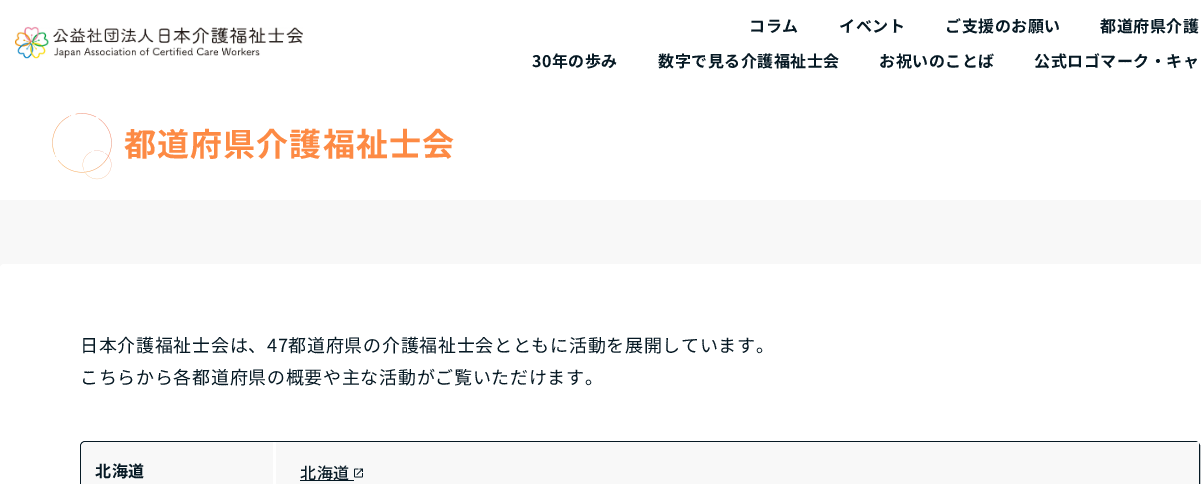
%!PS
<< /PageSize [1201 484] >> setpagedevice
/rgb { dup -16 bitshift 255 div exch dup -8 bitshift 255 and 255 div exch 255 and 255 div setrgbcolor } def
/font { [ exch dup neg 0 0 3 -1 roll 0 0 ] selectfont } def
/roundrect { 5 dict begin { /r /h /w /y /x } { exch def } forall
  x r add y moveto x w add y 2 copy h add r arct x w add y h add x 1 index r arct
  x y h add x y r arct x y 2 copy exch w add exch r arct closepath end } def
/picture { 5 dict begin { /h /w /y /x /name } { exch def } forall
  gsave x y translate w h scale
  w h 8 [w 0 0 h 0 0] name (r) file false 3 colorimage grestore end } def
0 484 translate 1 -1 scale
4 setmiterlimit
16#FFFFFF rgb
0 0 1201 484 rectfill
(pic1.raw) 15 26 288 33 picture
/NotoSansJP-Bold 16 font
16#061924 rgb
749 32 moveto 0.5 0 (コラム) ashow
839 32 moveto 0.5 0 (イベント) ashow
945 32 moveto 0.5 0 (ご支援のお願い) ashow
1100 32 moveto 0.5 0 (都道府県介護) ashow
532 67 moveto 0.5 0 (30年の歩み) ashow
658 67 moveto 0.5 0 (数字で見る介護福祉士会) ashow
879 67 moveto 0.5 0 (お祝いのことば) ashow
1034 67 moveto 0.5 0 (公式ロゴマーク・キャ) ashow
(pic2.raw) 52 113 60 67 picture
/NotoSansJP-Bold 32 font
16#FD8A44 rgb
124 156 moveto 1.1 0 (都道府県介護福祉士会) ashow
16#F8F8F8 rgb
0 200 1201 68 rectfill
16#FFFFFF rgb
0 264 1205 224 4 roundrect fill
/NotoSansJP-Regular 18 font
16#061924 rgb
80 352 moveto 0.7 0 (日本介護福祉士会は、47都道府県の介護福祉士会とともに活動を展開しています。) ashow
80 384 moveto 0.7 0 (こちらから各都道府県の概要や主な活動がご覧いただけます。) ashow
80.5 441.5 1119 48 4.5 roundrect stroke
16#F8F8F8 rgb
86 442 moveto 276 442 lineto 276 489 lineto 81 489 lineto 81 447 lineto 81 444 83 442 86 442 curveto closepath fill
16#FFFFFF rgb
273 442 3 42 rectfill
/NotoSansJP-Bold 16 font
16#061924 rgb
95 477 moveto 0.5 0 (北海道) ashow
16#F8F8F8 rgb
276 442 923 42 rectfill
16#061924 rgb
300 480 54 1 rectfill
/NotoSansJP-Medium 16 font
300 479 moveto 0.5 0 (北海道) ashow
(pic3.raw) 354 468 9 10 picture
showpage
